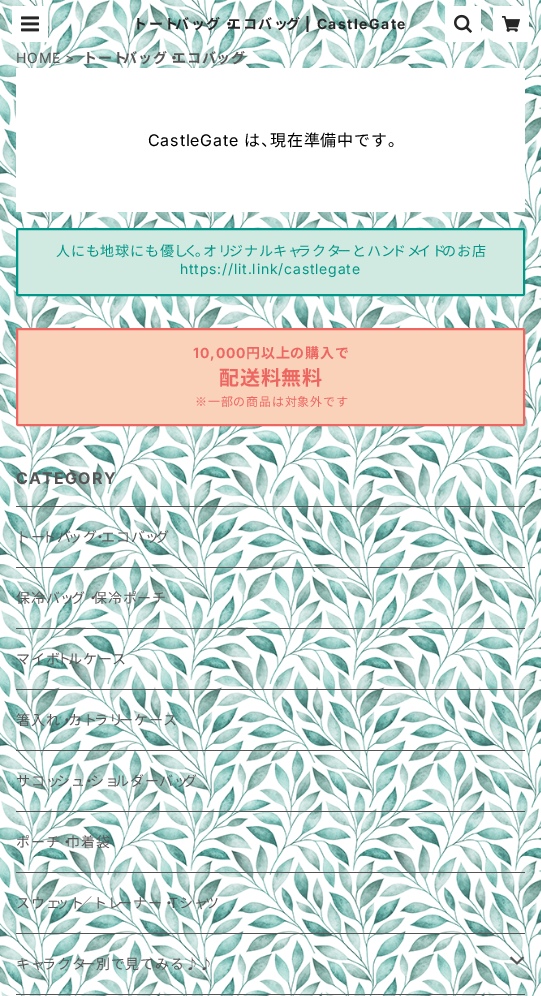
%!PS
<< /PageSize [541 996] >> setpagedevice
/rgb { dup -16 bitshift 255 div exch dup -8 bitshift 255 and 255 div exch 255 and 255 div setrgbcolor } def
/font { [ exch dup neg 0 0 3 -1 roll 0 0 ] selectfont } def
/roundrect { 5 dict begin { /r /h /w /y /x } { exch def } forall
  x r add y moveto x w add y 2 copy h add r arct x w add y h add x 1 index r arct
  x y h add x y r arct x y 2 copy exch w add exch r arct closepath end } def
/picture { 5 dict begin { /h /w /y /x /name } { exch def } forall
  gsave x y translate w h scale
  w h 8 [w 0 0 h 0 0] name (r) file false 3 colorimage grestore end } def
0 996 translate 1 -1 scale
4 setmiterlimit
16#FFFFFF rgb
0 0 541 996 rectfill
(pic1.raw) 0 0 541 996 picture
12 6 36 36 rectfill
(pic2.raw) 21 16 18 16 picture
/NotoSansJP-Bold 14 font
16#252525 rgb
133 29 moveto 1.5 0 (トート) ashow
175 29 moveto 1.5 0 (バッグ・) ashow
227 29 moveto 1.5 0 (エコバッ) ashow
286 29 moveto 1.5 0 (グ) ashow
gsave
133 16 275 16 rectclip
/Inter-Bold 14 font
305 29 moveto 1.5 0 (| CastleGate) ashow
grestore
16#FFFFFF rgb
445 6 36 36 rectfill
(pic3.raw) 454 14 18 19 picture
493 6 36 36 rectfill
(pic4.raw) 502 16 18 16 picture
/Inter-Regular 14 font
16#555555 rgb
16 63 moveto 0.8 0 (HOME) ashow
65 63 moveto 0.8 0 (>) ashow
/NotoSansJP-Bold 14 font
83 63 moveto 0.8 0 (トート) ashow
123 63 moveto 0.8 0 (バッグ・) ashow
172 63 moveto 0.8 0 (エコバッグ) ashow
16#FFFFFF rgb
16 68 509 144 rectfill
/Inter-Regular 16 font
16#000000 rgb
148 146 moveto 0.8 0 (CastleGate) ashow
/NotoSansJP-Regular 16 font
244 146 moveto 0.8 0 (は、) ashow
270 146 moveto 0.8 0 (現在準備中です。) ashow
16#D1EAE1 rgb
17 229 507 66 1 roundrect gsave fill grestore
16#029688 rgb
2 setlinewidth
stroke
/NotoSansJP-Regular 14 font
56 256 moveto 0.8 0 (人にも地球にも優し) ashow
184 256 moveto 0.8 0 (く) ashow
195 256 moveto 0.8 0 (。) ashow
203 256 moveto 0.8 0 (オリ) ashow
229 256 moveto 0.8 0 (ジナルキャ) ashow
297 256 moveto 0.8 0 (ラクタ) ashow
337 256 moveto 0.8 0 (ーとハン) ashow
392 256 moveto 0.8 0 (ドメ) ashow
417 256 moveto 0.8 0 (イド) ashow
442 256 moveto 0.8 0 (のお店) ashow
/Inter-Regular 14 font
180 274 moveto 0.8 0 (https://lit.link/castlegate) ashow
16#FAD2BA rgb
17 329 507 96 1 roundrect gsave fill grestore
16#ED6762 rgb
stroke
/Inter-Bold 14 font
193 358 moveto 0.8 0 (10,000) ashow
/NotoSansJP-Bold 14 font
246 358 moveto 0.8 0 (円以上の購入で) ashow
/NotoSansJP-Bold 20 font
219 385 moveto 0.8 0 (配送料無料) ashow
/NotoSansJP-Regular 12 font
195 406 moveto 0.8 0 (※一部の商品は対象外です) ashow
/Inter-Bold 16 font
16#555555 rgb
16 484 moveto 1.25 0 (CATEGORY) ashow
16 506 509 1 rectfill
16 994 509 1 rectfill
/NotoSansJP-Regular 14 font
16 542 moveto 0.8 0 (トー) ashow
42 542 moveto 0.8 0 (トバ) ashow
68 542 moveto 0.8 0 (ッグ) ashow
93 542 moveto 0.8 0 (・) ashow
101 542 moveto 0.8 0 (エコバッ) ashow
155 542 moveto 0.8 0 (グ) ashow
16 567 509 1 rectfill
16 603 moveto 0.8 0 (保冷バッ) ashow
71 603 moveto 0.8 0 (グ・) ashow
93 603 moveto 0.8 0 (保冷ポーチ) ashow
16 628 509 1 rectfill
16 664 moveto 0.8 0 (マイボ) ashow
57 664 moveto 0.8 0 (ト) ashow
68 664 moveto 0.8 0 (ルケース) ashow
16 689 509 1 rectfill
16 725 moveto 0.8 0 (箸入れ・) ashow
68 725 moveto 0.8 0 (カト) ashow
94 725 moveto 0.8 0 (ラリ) ashow
119 725 moveto 0.8 0 (ーケース) ashow
16 750 509 1 rectfill
16 786 moveto 0.8 0 (サコッ) ashow
56 786 moveto 0.8 0 (シュ) ashow
82 786 moveto 0.8 0 (・) ashow
90 786 moveto 0.8 0 (ショ) ashow
115 786 moveto 0.8 0 (ルダーバッ) ashow
183 786 moveto 0.8 0 (グ) ashow
16 811 509 1 rectfill
16 847 moveto 0.8 0 (ポーチ・) ashow
66 847 moveto 0.8 0 (巾着袋) ashow
16 872 509 1 rectfill
16 908 moveto 0.8 0 (スウェ) ashow
55 908 moveto 0.8 0 (ット) ashow
78 908 moveto 0.8 0 (／トレ) ashow
118 908 moveto 0.8 0 (ーナー・) ashow
/Inter-Regular 14 font
169 908 moveto 0.8 0 (T) ashow
/NotoSansJP-Regular 14 font
179 908 moveto 0.8 0 (シャ) ashow
205 908 moveto 0.8 0 (ツ) ashow
16 933 509 1 rectfill
16 969 moveto 0.8 0 (キャ) ashow
42 969 moveto 0.8 0 (ラクタ) ashow
81 969 moveto 0.8 0 (ー別で見てみる♪♪) ashow
(pic5.raw) 510 956 14 9 picture
showpage
